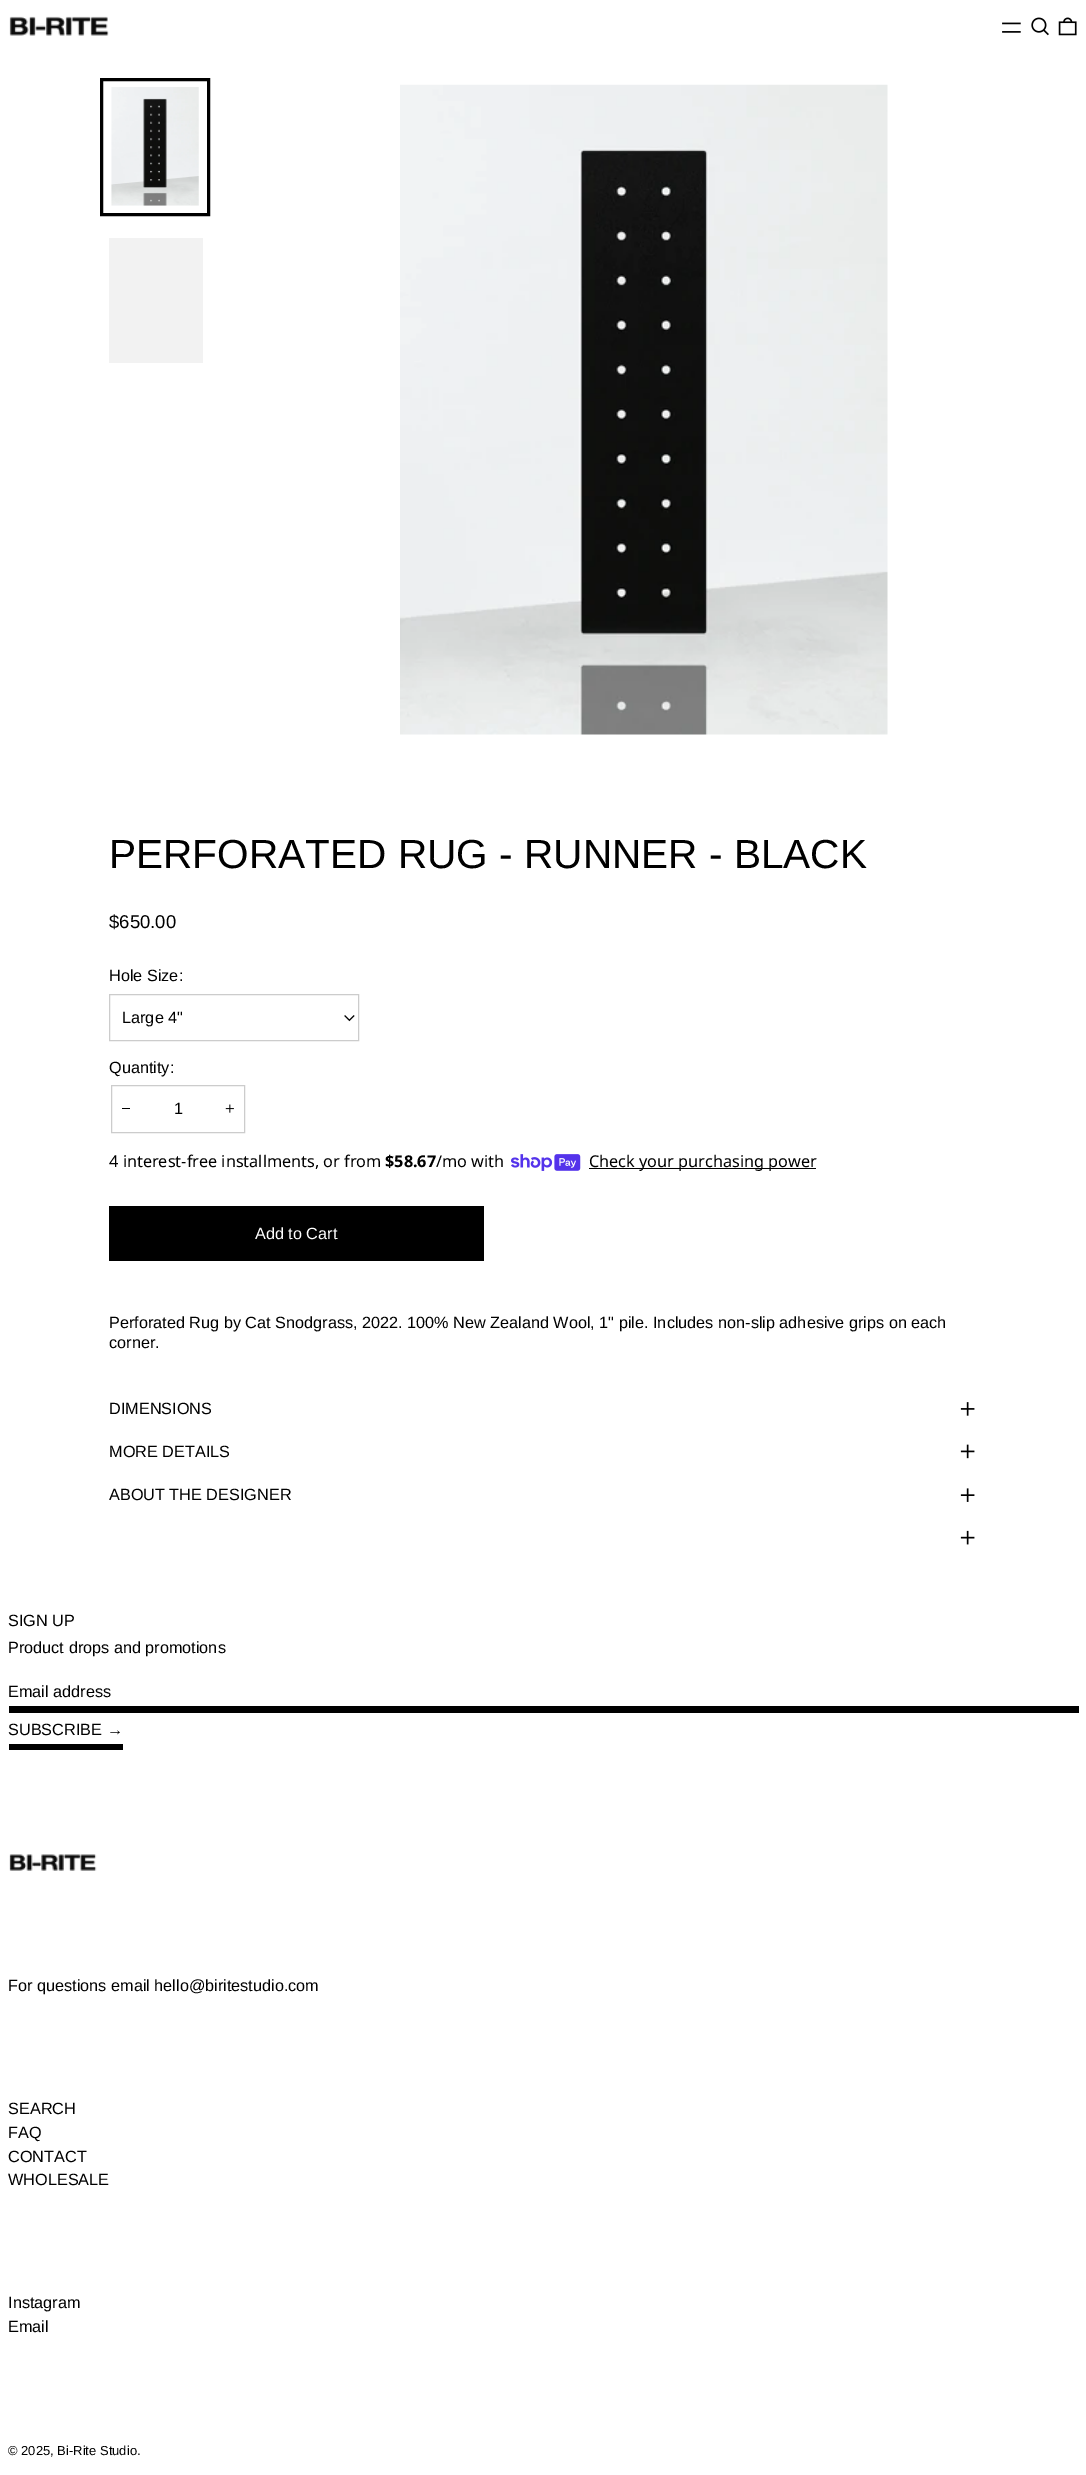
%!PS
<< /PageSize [1086 2475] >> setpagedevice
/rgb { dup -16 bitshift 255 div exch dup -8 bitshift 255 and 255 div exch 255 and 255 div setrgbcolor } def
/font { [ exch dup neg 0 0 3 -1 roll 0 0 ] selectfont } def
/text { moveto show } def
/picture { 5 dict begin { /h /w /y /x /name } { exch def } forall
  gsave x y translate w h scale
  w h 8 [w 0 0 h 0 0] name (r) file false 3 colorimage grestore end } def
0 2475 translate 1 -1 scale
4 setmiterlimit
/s1 { /Arimo-Regular 40.6 font 16#000000 rgb } def
/s2 { /Arimo-Regular 18.5 font 16#000000 rgb } def
/s3 { /Arimo-Regular 16.25 font 16#000000 rgb } def
/s4 { /NotoSans-Regular 16.25 font 16#000000 rgb } def
/s5 { /NotoSans-Bold 16.25 font 16#000000 rgb } def
/s6 { /Arimo-Regular 16.25 font 16#FFFFFF rgb } def
/s7 { /LiberationSans-Regular 16.25 font 16#000000 rgb } def
/s8 { /Arimo-Regular 13 font 16#000000 rgb } def
16#FFFFFF rgb
0 0 1086 2475 rectfill
(pic1.raw) 9 16 100 20 picture
(pic2.raw) 1002 22 19 11 picture
(pic3.raw) 1031 17 18 19 picture
(pic4.raw) 1058 17 19 19 picture
16#000000 rgb
3 setlinewidth
101.5 79.5 107 135 rectstroke
(pic5.raw) 111 87 88 119 picture
16#F2F2F2 rgb
109 238 94 125 rectfill
(pic6.raw) 400 84 488 651 picture
s1
(PERFORATED RUG - RUNNER - BLACK) 109 868 text
s2
($650.00) 109 928 text
s3
(Hole Size:) 109 981 text
(pic7.raw) 344 1015 11 7 picture
16#CCCCCC rgb
1 setlinewidth
109.5 994.5 249 46 rectstroke
s3
(Large 4") 122 1023 text
(Quantity:) 109 1073 text
16#CCCCCC rgb
111.5 1085.5 133 47 rectstroke
16#000000 rgb
122 1108 8 1 rectfill
(1) 174 1114 text
(pic8.raw) 225 1104 9 9 picture
s4
(4 interest-free installments, or from) 109 1167 text
s5
($58.67) 385 1167 text
s4
(/mo with) 436 1167 text
(pic9.raw) 511 1154 70 17 picture
589 1168 227 1 rectfill
(Check your purchasing power) 589 1167 text
109 1206 375 55 rectfill
s6
(Add to Cart) 255 1239 text
s3
(Perforated Rug by Cat Snodgrass, 2022. 100% New Zealand Wool, 1" pile. Includes non-slip adhesive grips on each) 109 1328 text
(corner.) 109 1348 text
(DIMENSIONS) 109 1414 text
(pic10.raw) 960 1402 15 14 picture
(MORE DETAILS) 109 1457 text
(pic11.raw) 960 1444 15 15 picture
(ABOUT THE DESIGNER) 109 1500 text
(pic12.raw) 960 1488 15 14 picture
(pic13.raw) 960 1530 15 15 picture
(SIGN UP) 8 1626 text
(Product drops and promotions) 8 1653 text
9 1706 1070 7 rectfill
(Email address) 8 1697 text
9 1744 114 6 rectfill
(SUBSCRIBE) 8 1735 text
s7
(→) 107 1735 text
(pic14.raw) 9 1854 88 17 picture
s3
(For questions email hello@biritestudio.com) 8 1991 text
(SEARCH) 8 2114 text
(FAQ) 8 2138 text
(CONTACT) 8 2162 text
(WHOLESALE) 8 2185 text
(Instagram) 8 2308 text
(Email) 8 2332 text
s8
(© 2025, Bi-Rite Studio.) 8 2455 text
showpage
